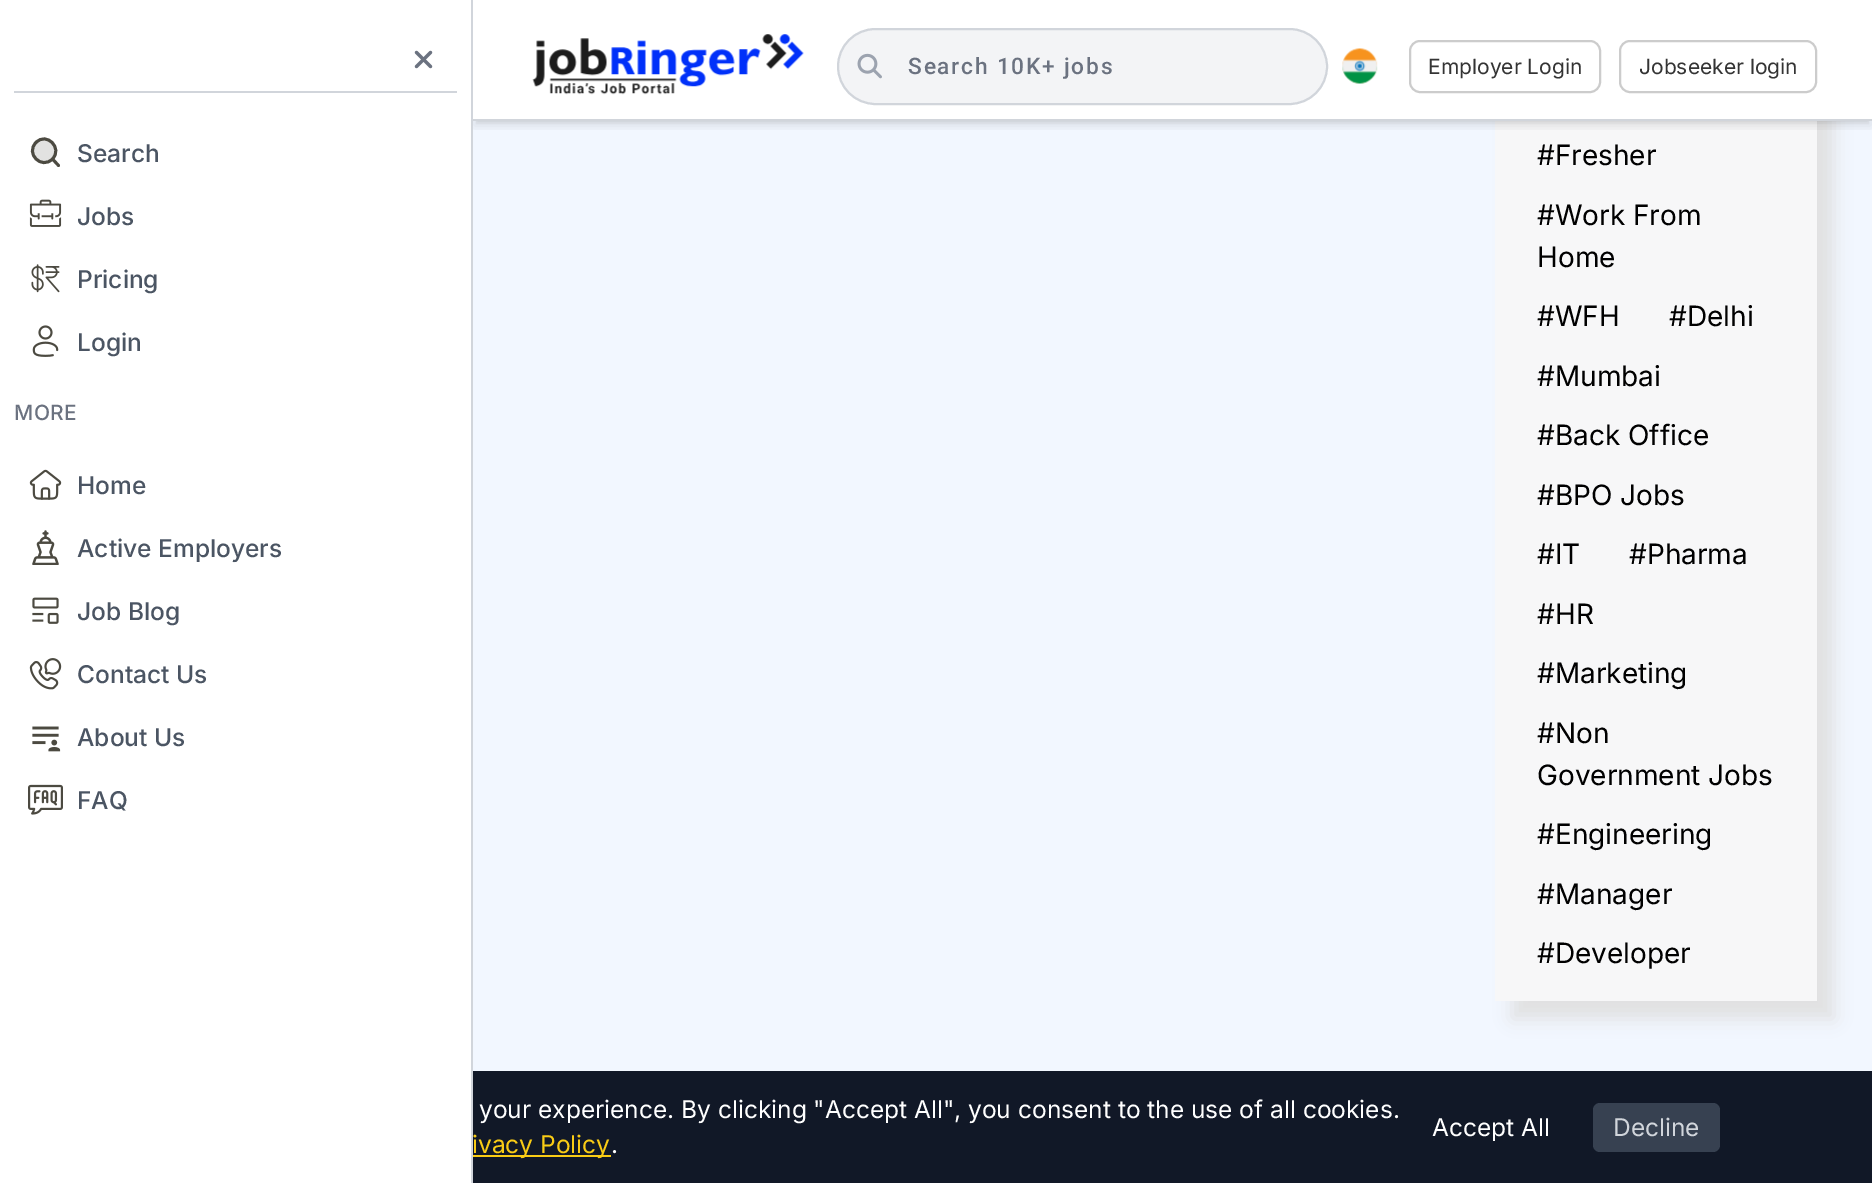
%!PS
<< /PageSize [1872 1183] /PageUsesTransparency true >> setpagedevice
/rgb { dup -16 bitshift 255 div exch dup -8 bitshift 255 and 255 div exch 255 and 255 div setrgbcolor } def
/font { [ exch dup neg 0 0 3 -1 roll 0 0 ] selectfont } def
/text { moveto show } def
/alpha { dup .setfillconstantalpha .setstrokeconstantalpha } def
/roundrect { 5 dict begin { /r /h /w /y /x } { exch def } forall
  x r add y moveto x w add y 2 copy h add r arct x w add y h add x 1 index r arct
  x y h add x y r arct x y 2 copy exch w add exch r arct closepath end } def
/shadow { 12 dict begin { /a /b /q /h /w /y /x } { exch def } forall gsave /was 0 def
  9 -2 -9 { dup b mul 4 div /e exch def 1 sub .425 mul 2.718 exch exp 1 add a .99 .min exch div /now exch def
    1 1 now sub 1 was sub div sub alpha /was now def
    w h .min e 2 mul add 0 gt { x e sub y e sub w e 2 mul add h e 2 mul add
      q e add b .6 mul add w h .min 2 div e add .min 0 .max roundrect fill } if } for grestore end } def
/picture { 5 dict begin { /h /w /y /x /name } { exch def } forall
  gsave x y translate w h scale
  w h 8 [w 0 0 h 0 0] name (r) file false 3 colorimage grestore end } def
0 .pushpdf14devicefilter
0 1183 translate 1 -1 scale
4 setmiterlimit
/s1 { /Inter-Regular 21 font 16#343434 rgb } def
/s2 { /Inter-Medium 24.5 font 16#4B5563 rgb } def
/s3 { /Inter-Regular 28 font 16#000000 rgb } def
/s4 { /Inter-Regular 24.5 font 16#FFFFFF rgb } def
/s5 { /Inter-Regular 24.5 font 16#FACC15 rgb } def
/s6 { /Inter-Regular 24.5 font 16#D1D5DB rgb } def
16#F2F7FF rgb
0 0 1872 1183 rectfill
16#E0E0E0 rgb
1512 21 322 998 0 9 1 shadow
16#FFFFFF rgb
473 0 1399 119 rectfill
16#F7F7F8 rgb
1495 121 322 880 rectfill
gsave
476 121 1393 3 rectclip
16#000000 rgb
476 7 1393 114 0 3.5 0.1 shadow
grestore
gsave
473 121 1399 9 rectclip
16#000000 rgb
474 9 1397 117 0 5 0.1 shadow
grestore
16#D1D5DB rgb
473 119 1399 2 rectfill
(pic1.raw) 532 34 272 61 picture
16#F3F4F6 rgb
838 29 489 75 37.5 roundrect gsave fill grestore
16#D1D5DB rgb
2 setlinewidth
stroke
(pic2.raw) 857 53 25 26 picture
/Roboto-Medium 22.75 font
16#6B7280 rgb
908 74 moveto 1.75 0 (Search 10K+ jobs) ashow
(pic3.raw) 1342 48 36 36 picture
16#CCCCCC rgb
1410 41 190 51 10 roundrect stroke
s1
(Employer Login) 1428 74 text
16#CCCCCC rgb
1620 41 196 51 10 roundrect stroke
s1
(Jobseeker login) 1639 74 text
16#FFFFFF rgb
0 0 471 1183 rectfill
16#D1D5DB rgb
471 0 2 1183 rectfill
14 91 443 2 rectfill
(pic4.raw) 414 50 19 19 picture
16#E2E2E1 rgb
55.5 151 moveto 55.5 166 32.5 166 32.5 151 curveto 32.5 135.5 55.5 135.5 55.5 151 curveto fill
16#4C4A41 rgb
2.9 setlinewidth
1 setlinecap
1 setlinejoin
58.5 165.5 moveto 52.5 159 lineto 52.5 159 moveto 63 148 46.5 131.5 36 142.5 curveto 25 153.5 41.5 170 52.5 159 curveto stroke
s2
(Search) 77 162 text
(pic5.raw) 29 199 33 28 picture
(Jobs) 77 225 text
(pic6.raw) 31 264 29 29 picture
(Pricing) 77 288 text
(pic7.raw) 32 325 27 32 picture
(Login) 77 351 text
/Inter-Medium 21 font
16#6B7280 rgb
14 420 moveto 0.5 0 (MORE) ashow
(pic8.raw) 29 469 33 31 picture
s2
(Home) 77 494 text
(pic9.raw) 32 530 27 35 picture
(Active Employers) 77 557 text
(pic10.raw) 32 597 27 27 picture
(Job Blog) 77 620 text
(pic11.raw) 29 658 33 32 picture
(Contact Us) 77 683 text
(pic12.raw) 32 726 29 26 picture
(About Us) 77 746 text
(pic13.raw) 28 784 35 31 picture
(FAQ) 77 809 text
s3
(#Fresher) 1537 165 text
(#Work From) 1537 225 text
(Home) 1537 267 text
(#WFH) 1537 326 text
(#Delhi) 1669 326 text
(#Mumbai) 1537 386 text
(#Back Office) 1537 445 text
(#BPO Jobs) 1537 505 text
(#IT) 1537 564 text
(#Pharma) 1629 564 text
(#HR) 1537 624 text
(#Marketing) 1537 683 text
(#Non) 1537 743 text
(Government Jobs) 1537 785 text
(#Engineering) 1537 844 text
(#Manager) 1537 904 text
(#Developer) 1537 963 text
16#111827 rgb
473 1071 1399 112 rectfill
s4
(your experience. By clicking "Accept All", you consent to the use of all cookies.) 479 1118 text
16#FACC15 rgb
473 1155 138 2 rectfill
(ivacy Policy) 472 1153 text
s4
(.) 611 1153 text
(Accept All) 1432 1136 text
16#374151 rgb
1593 1103 127 49 7 roundrect fill
s6
(Decline) 1613 1136 text
.poppdf14devicefilter showpage
